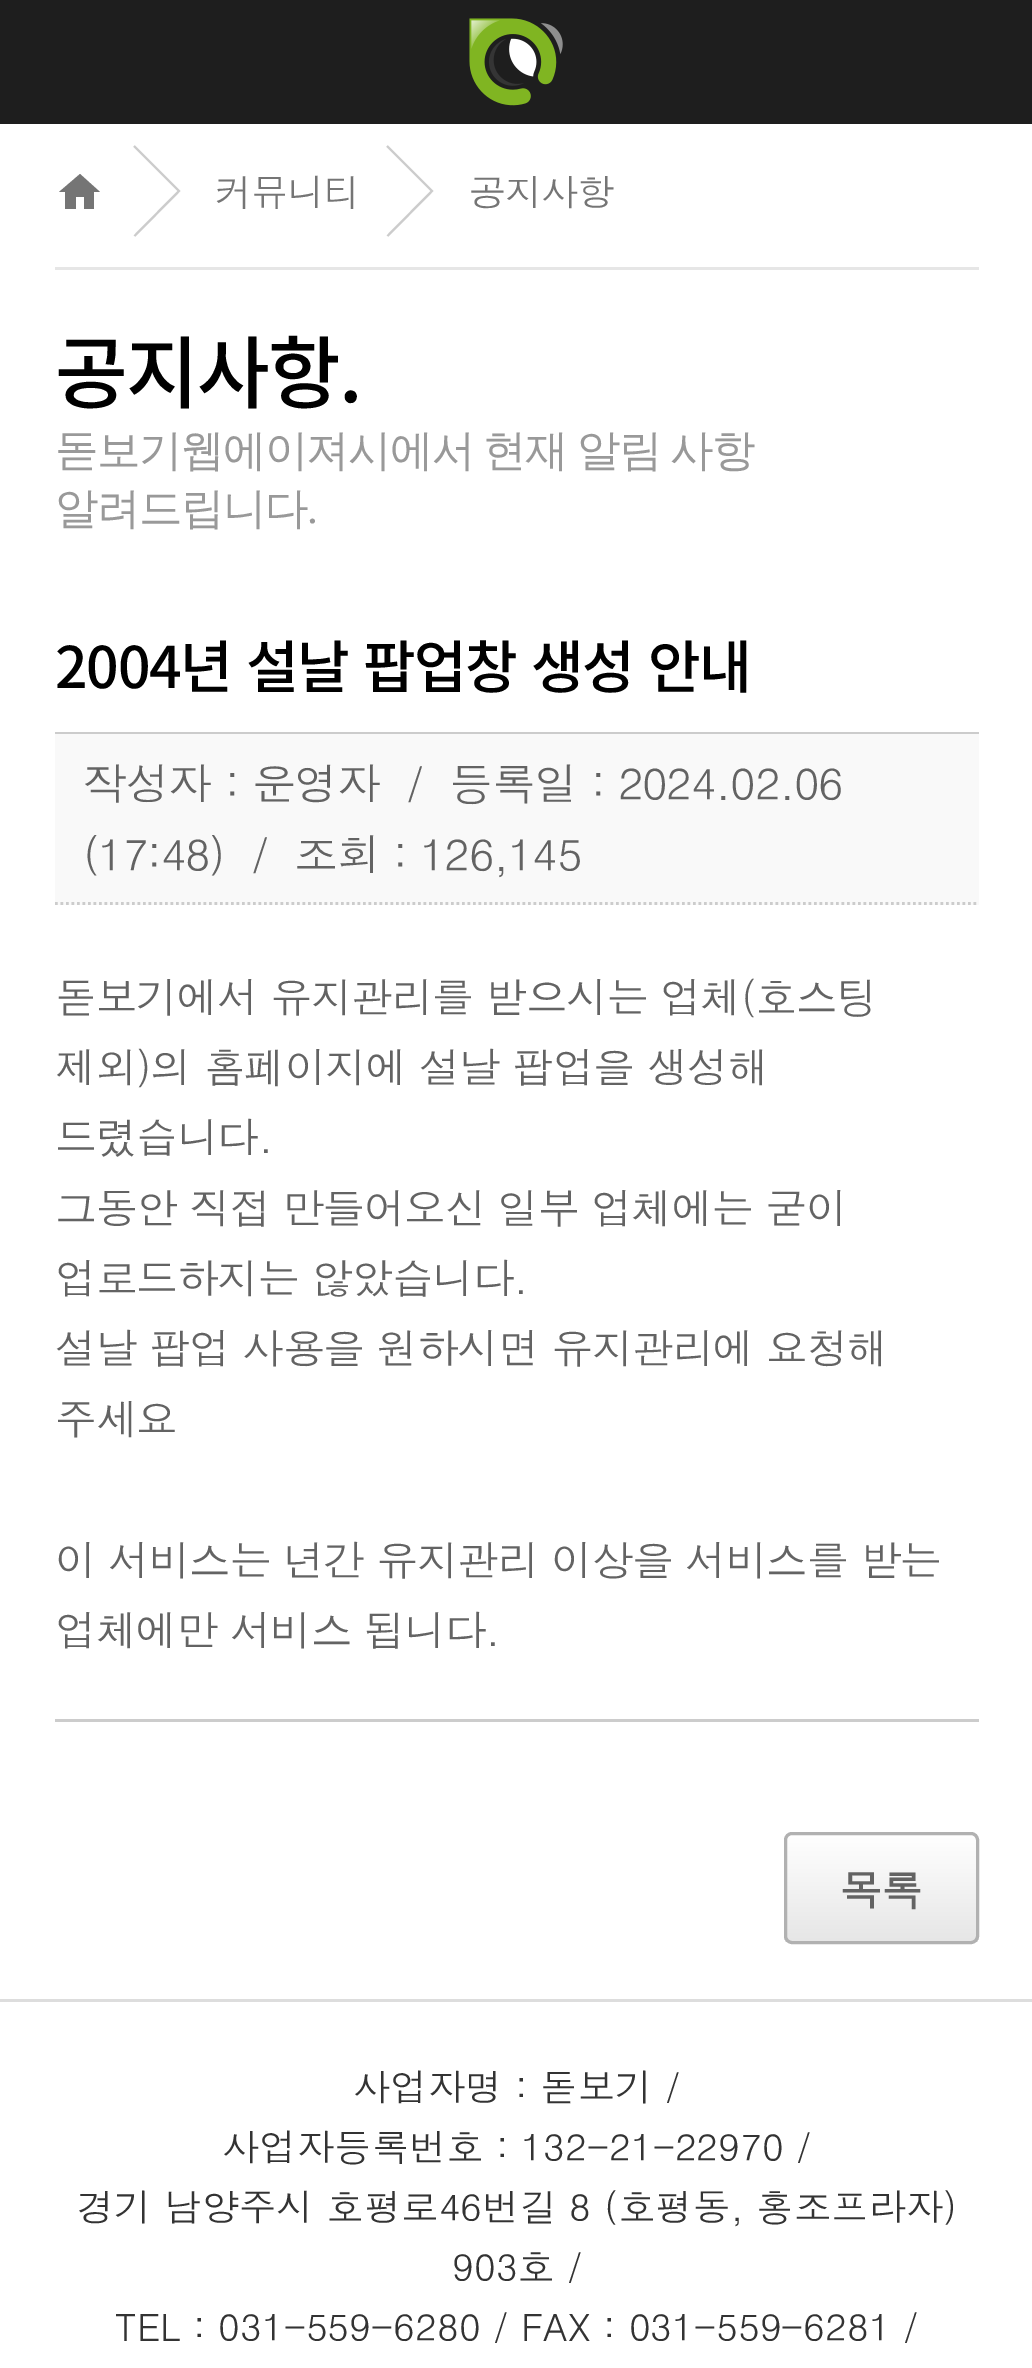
%!PS
<< /PageSize [1032 2368] >> setpagedevice
/rgb { dup -16 bitshift 255 div exch dup -8 bitshift 255 and 255 div exch 255 and 255 div setrgbcolor } def
/font { [ exch dup neg 0 0 3 -1 roll 0 0 ] selectfont } def
/text { moveto show } def
/roundrect { 5 dict begin { /r /h /w /y /x } { exch def } forall
  x r add y moveto x w add y 2 copy h add r arct x w add y h add x 1 index r arct
  x y h add x y r arct x y 2 copy exch w add exch r arct closepath end } def
/picture { 5 dict begin { /h /w /y /x /name } { exch def } forall
  gsave x y translate w h scale
  w h 8 [w 0 0 h 0 0] name (r) file false 3 colorimage grestore end } def
0 2368 translate 1 -1 scale
4 setmiterlimit
/s1 { /Dotum-Regular 37.4 font 16#333333 rgb } def
16#FFFFFF rgb
0 0 1032 2368 rectfill
16#1E1E1E rgb
0 0 1032 124 rectfill
(pic1.raw) 469 18 94 88 picture
16#E6E6E6 rgb
55 267 924 3 rectfill
16#757575 rgb
76 209 moveto 65 209 lineto 65 192 lineto 59 192 lineto 80 174 lineto 100 192 lineto 94 192 lineto 94 209 lineto 84 209 lineto 84 197 lineto 76 197 lineto closepath fill
16#CCCCCC rgb
2.1 setlinewidth
134 146 moveto 179 191 lineto 134.5 236 lineto stroke
/Dotum-Regular 37.4 font
16#757575 rgb
215 206 moveto -1.3 0 (커뮤니티) ashow
16#CCCCCC rgb
387 146 moveto 432 191 lineto 387.5 236 lineto stroke
16#757575 rgb
469 206 moveto -1.3 0 (공지사항) ashow
/NotoSansKR-Medium 79 font
16#000000 rgb
55 402 moveto -1.6 0 (공지사항.) ashow
/WenQuanYiZenHei-Medium 43.5 font
16#999999 rgb
55 465 moveto -2 0 32 -1.6 0 (돋보기웹에이져시에서 현재 알림 사항) awidthshow
55 523 moveto -1.6 0 (알려드립니다) ashow
/LiberationSerif-Regular 43.5 font
307 523 moveto -1.6 0 (.) ashow
16#CCCCCC rgb
55 1719 924 3 rectfill
55 732 924 2 rectfill
/NotoSansKR-Medium 57.25 font
16#000000 rgb
55 688 moveto 2.5 0 32 -1.3 0 (2004년 설날 팝업창 생성 안내) awidthshow
16#F9F9F9 rgb
55 734 924 171 rectfill
16#CCCCCC rgb
2.8 setlinewidth
[2.75 2.75] 0 setdash
55 903.5 moveto 979 903.5 lineto stroke
/Dotum-Regular 44 font
16#636363 rgb
83 800 moveto -1.3 0 (작성자 : 운영자  /) ashow
449 800 moveto -1.3 0 (등록일 : 2024.02.06) ashow
83 871 moveto -1.3 0 (\(17:48\)  /) ashow
294 871 moveto -1.3 0 (조회 : 126,145) ashow
/Dotum-Regular 41.8 font
55 1013 moveto -1.3 0 (돋보기에서 유지관리를 받으시는 업체\(호스팅) ashow
55 1083 moveto -1.3 0 (제외\)의 홈페이지에 설날 팝업을 생성해) ashow
55 1153 moveto -1.3 0 (드렸습니다.) ashow
55 1224 moveto -1.3 0 (그동안 직접 만들어오신) ashow
497 1224 moveto -1.3 0 (일부 업체에는 굳이) ashow
55 1294 moveto -1.3 0 (업로드하지는 않았습니다.) ashow
55 1364 moveto -1.3 0 (설날 팝업 사용을 원하시면 유지관리에 요청해) ashow
55 1435 moveto -1.3 0 (주세요) ashow
55 1576 moveto -1.3 0 (이 서비스는 년간 유지관리 이상을 서비스를 받는) ashow
55 1646 moveto -1.3 0 (업체에만 서비스 됩니다.) ashow
gsave
784 1832 195 112 8 roundrect clip newpath
gsave 784 1834 moveto 979 1834 lineto 979 1942 lineto 784 1942 lineto closepath clip newpath
<< /ShadingType 2 /ColorSpace /DeviceRGB /Coords [787 1834 787 1942] /Extend [true true] /Function << /FunctionType 2 /Domain [0 1] /C0 [1 1 1] /C1 [0.902 0.902 0.902] /N 1 >> >> shfill grestore
grestore
16#B1B1B1 rgb
3 setlinewidth
[] 0 setdash
785.5 1833.5 192 109 6.5 roundrect stroke
/Dotum-Bold 41.8 font
16#636363 rgb
840 1906 moveto -1.3 0 (목록) ashow
16#DDDDDD rgb
0 1999 1032 3 rectfill
s1
(사업자명 : 돋보기 /) 353 2101 text
(사업자등록번호 : 132-21-22970 /) 222 2161 text
(경기 남양주시 호평로46번길 8 \(호평동, 홍조프라자\)) 77 2221 text
(903호 /) 452 2281 text
(TEL : 031-559-6280 / FAX : 031-559-6281 /) 115 2341 text
showpage
